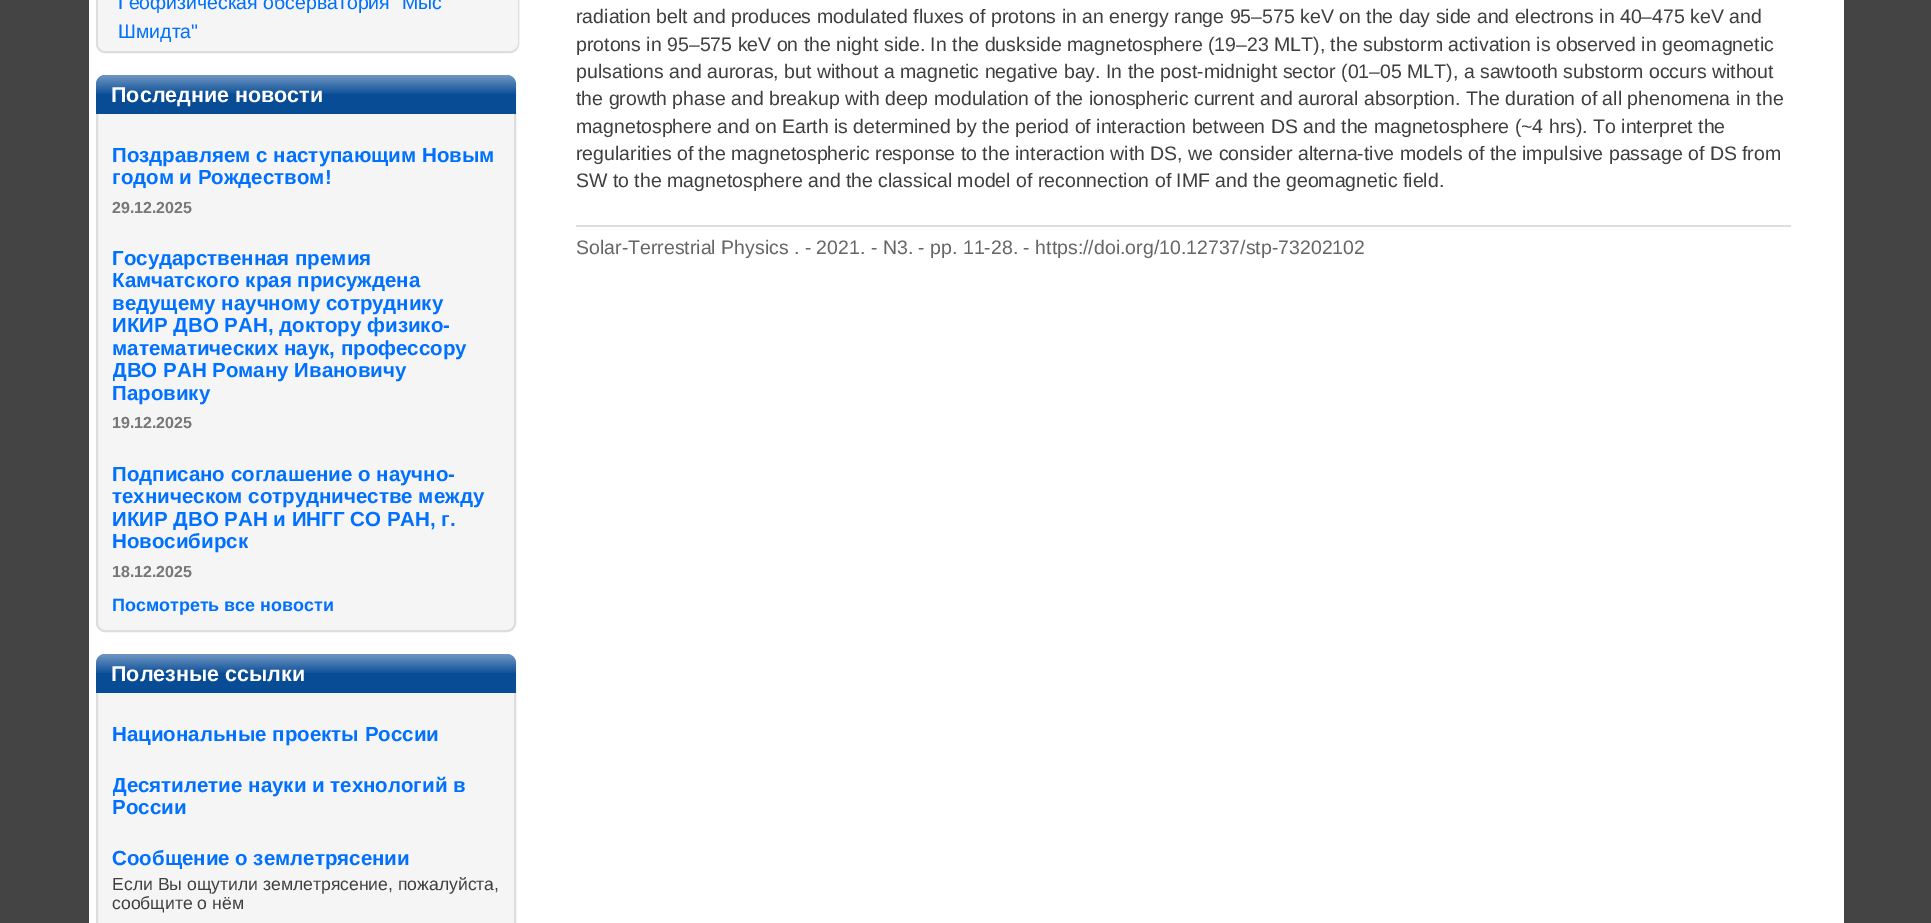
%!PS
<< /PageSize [1931 923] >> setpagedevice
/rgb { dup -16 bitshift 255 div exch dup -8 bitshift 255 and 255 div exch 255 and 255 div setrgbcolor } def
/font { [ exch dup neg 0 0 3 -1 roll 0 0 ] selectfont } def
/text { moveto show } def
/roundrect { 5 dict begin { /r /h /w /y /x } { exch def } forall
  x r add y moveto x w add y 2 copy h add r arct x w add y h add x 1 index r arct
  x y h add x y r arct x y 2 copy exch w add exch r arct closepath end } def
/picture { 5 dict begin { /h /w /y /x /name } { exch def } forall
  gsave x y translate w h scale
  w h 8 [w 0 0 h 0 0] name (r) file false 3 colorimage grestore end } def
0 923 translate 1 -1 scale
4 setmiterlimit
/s1 { /LiberationSans-Regular 19.5 font 16#0070FF rgb } def
/s2 { /LiberationSans-Bold 21.5 font 16#FFFFFF rgb } def
/s3 { /LiberationSans-Bold 20.5 font 16#0070FF rgb } def
/s4 { /LiberationSans-Bold 16 font 16#777777 rgb } def
/s5 { /LiberationSans-Bold 17.9 font 16#0070FF rgb } def
/s6 { /LiberationSans-Regular 17.6 font 16#3F3F3F rgb } def
/s7 { /LiberationSans-Regular 19.5 font 16#3F3F3F rgb } def
/s8 { /LiberationSans-Regular 19.5 font 16#666666 rgb } def
16#444444 rgb
0 0 1931 923 rectfill
16#FFFFFF rgb
89 0 1755 923 rectfill
16#DDDDDD rgb
2 setlinewidth
97 -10 421 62 8 roundrect stroke
16#F5F5F5 rgb
98 -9 moveto 518 -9 lineto 518 42 lineto 518 47 514 51 509 51 curveto 107 51 lineto 102 51 98 47 98 42 curveto closepath fill
s1
(Геофизическая обсерватория "Мыс) 118 9 text
(Шмидта") 118 38 text
16#F5F5F5 rgb
97 76 418 555 8 roundrect gsave fill grestore
16#DDDDDD rgb
stroke
16#084C96 rgb
105 75 moveto 507 75 lineto 512 75 516 79 516 84 curveto 516 114 lineto 96 114 lineto 96 84 lineto 96 79 100 75 105 75 curveto closepath fill
(pic1.raw) 96 75 420 19 picture
s2
(Последние новости) 111 102 text
s3
(Поздравляем с наступающим Новым) 112 162 text
(годом и Рождеством!) 112 184 text
s4
(29.12.2025) 112 213 text
s3
(Государственная премия) 112 265 text
(Камчатского края присуждена) 112 287 text
(ведущему научному сотруднику) 112 310 text
(ИКИР ДВО РАН, доктору физико-) 112 332 text
(математических наук, профессору) 112 355 text
gsave
113 231 387 207 rectclip
(ДВО РАН Роману Ивановичу) 112 377 text
grestore
(Паровику) 112 400 text
s4
(19.12.2025) 112 428 text
s3
(Подписано соглашение о научно-) 112 481 text
(техническом сотрудничестве между) 112 503 text
(ИКИР ДВО РАН и ИНГГ СО РАН, г.) 112 526 text
(Новосибирск) 112 548 text
s4
(18.12.2025) 112 577 text
s5
(Посмотреть все новости) 112 611 text
16#F5F5F5 rgb
97 655 418 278 8 roundrect gsave fill grestore
16#DDDDDD rgb
stroke
16#084C96 rgb
105 654 moveto 507 654 lineto 512 654 516 658 516 663 curveto 516 693 lineto 96 693 lineto 96 663 lineto 96 658 100 654 105 654 curveto closepath fill
(pic1.raw) 96 654 420 19 picture
s2
(Полезные ссылки) 111 681 text
s3
(Национальные проекты России) 112 741 text
gsave
113 758 387 66 rectclip
(Десятилетие науки и технологий в) 112 792 text
grestore
(России) 112 814 text
(Сообщение о землетрясении) 112 865 text
s6
(Если Вы ощутили землетрясение, пожалуйста,) 112 890 text
(сообщите о нём) 112 909 text
s7
(radiation belt and produces modulated fluxes of protons in an energy range 95–575 keV on the day side and electrons in 40–475 keV and) 576 23 text
(protons in 95–575 keV on the night side. In the duskside magnetosphere \(19–23 MLT\), the substorm activation is observed in geomagnetic) 576 51 text
(pulsations and auroras, but without a magnetic negative bay. In the post-midnight sector \(01–05 MLT\), a sawtooth substorm occurs without) 576 78 text
(the growth phase and breakup with deep modulation of the ionospheric current and auroral absorption. The duration of all phenomena in the) 576 105 text
(magnetosphere and on Earth is determined by the period of interaction between DS and the magnetosphere \(~4 hrs\). To interpret the) 576 133 text
(regularities of the magnetospheric response to the interaction with DS, we consider alterna-tive models of the impulsive passage of DS from) 576 160 text
(SW to the magnetosphere and the classical model of reconnection of IMF and the geomagnetic field.) 576 187 text
16#DDDDDD rgb
576 225 1215 2 rectfill
s8
(Solar-Terrestrial Physics . - 2021. - N3. - pp. 11-28. - https://doi.org/10.12737/stp-73202102) 576 254 text
showpage
